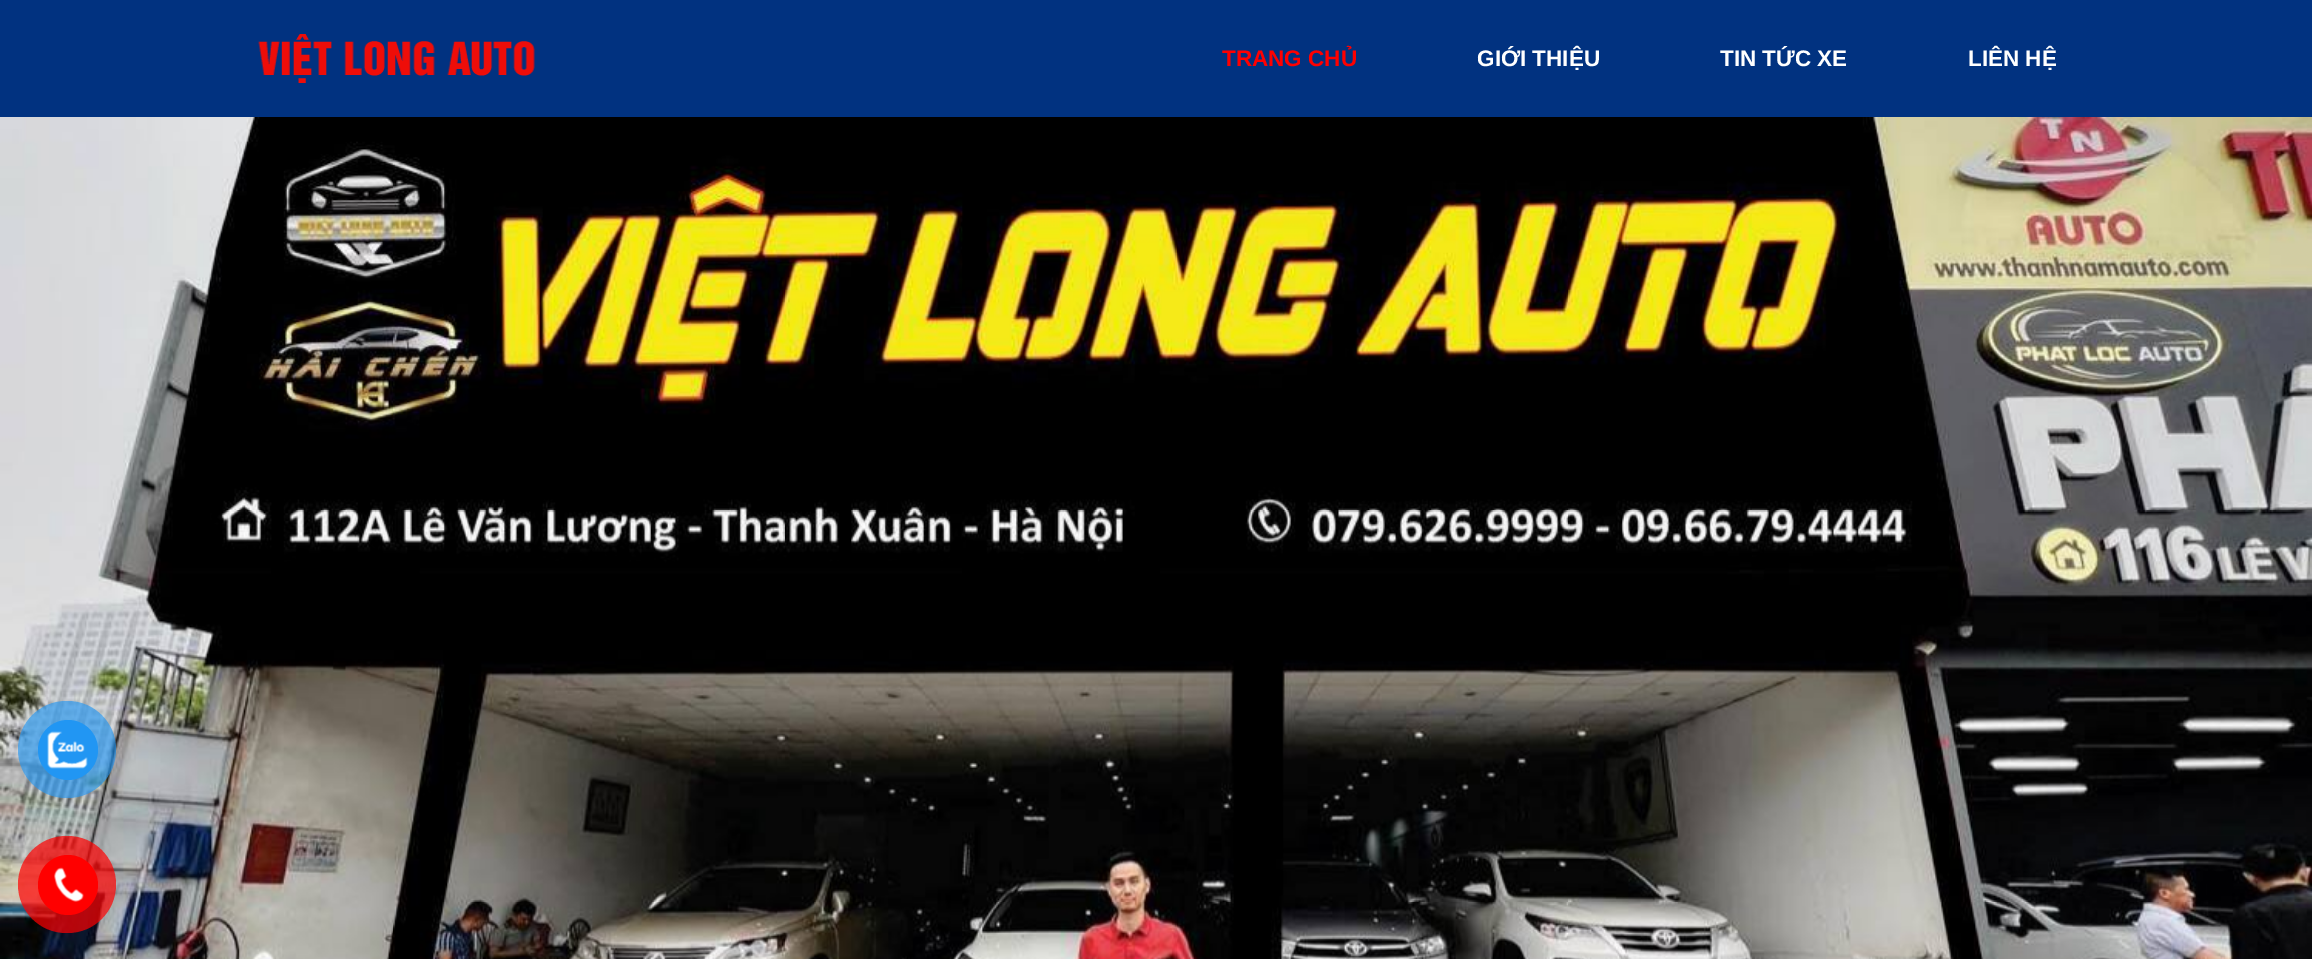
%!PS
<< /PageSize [2312 959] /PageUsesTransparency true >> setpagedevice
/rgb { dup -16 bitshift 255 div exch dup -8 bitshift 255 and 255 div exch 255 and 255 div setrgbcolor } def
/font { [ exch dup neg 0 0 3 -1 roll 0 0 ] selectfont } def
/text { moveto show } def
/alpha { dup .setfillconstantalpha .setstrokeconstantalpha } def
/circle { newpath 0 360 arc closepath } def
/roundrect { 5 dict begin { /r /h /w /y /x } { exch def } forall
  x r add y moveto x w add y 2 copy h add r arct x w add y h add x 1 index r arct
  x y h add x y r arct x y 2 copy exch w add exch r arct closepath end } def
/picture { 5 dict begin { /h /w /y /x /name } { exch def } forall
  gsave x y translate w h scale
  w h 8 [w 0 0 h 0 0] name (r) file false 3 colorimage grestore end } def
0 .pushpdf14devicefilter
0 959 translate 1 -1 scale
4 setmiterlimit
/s1 { /LiberationSans-Bold 22.5 font 16#FF0000 rgb } def
/s2 { /LiberationSans-Bold 22.5 font 16#FFFFFF rgb } def
16#013280 rgb
0 0 2312 959 rectfill
(pic1.raw) 258 34 277 49 picture
s1
(TRANG CHỦ) 1222 66 text
s2
(GIỚI THIỆU) 1477 66 text
(TIN TỨC XE) 1720 66 text
(LIÊN HỆ) 1968 66 text
(pic2.raw) 0 117 2312 842 picture
0.63 alpha
16#2196F3 rgb
18 701 98 97 48.5 roundrect fill
1 alpha
68 750 30 circle fill
(pic3.raw) 47 731 41 38 picture
0.7 alpha
16#FF0000 rgb
18 836 98 97 48.5 roundrect fill
1 alpha
68 885 30 circle fill
(pic4.raw) 54 867 30 35 picture
.poppdf14devicefilter showpage
